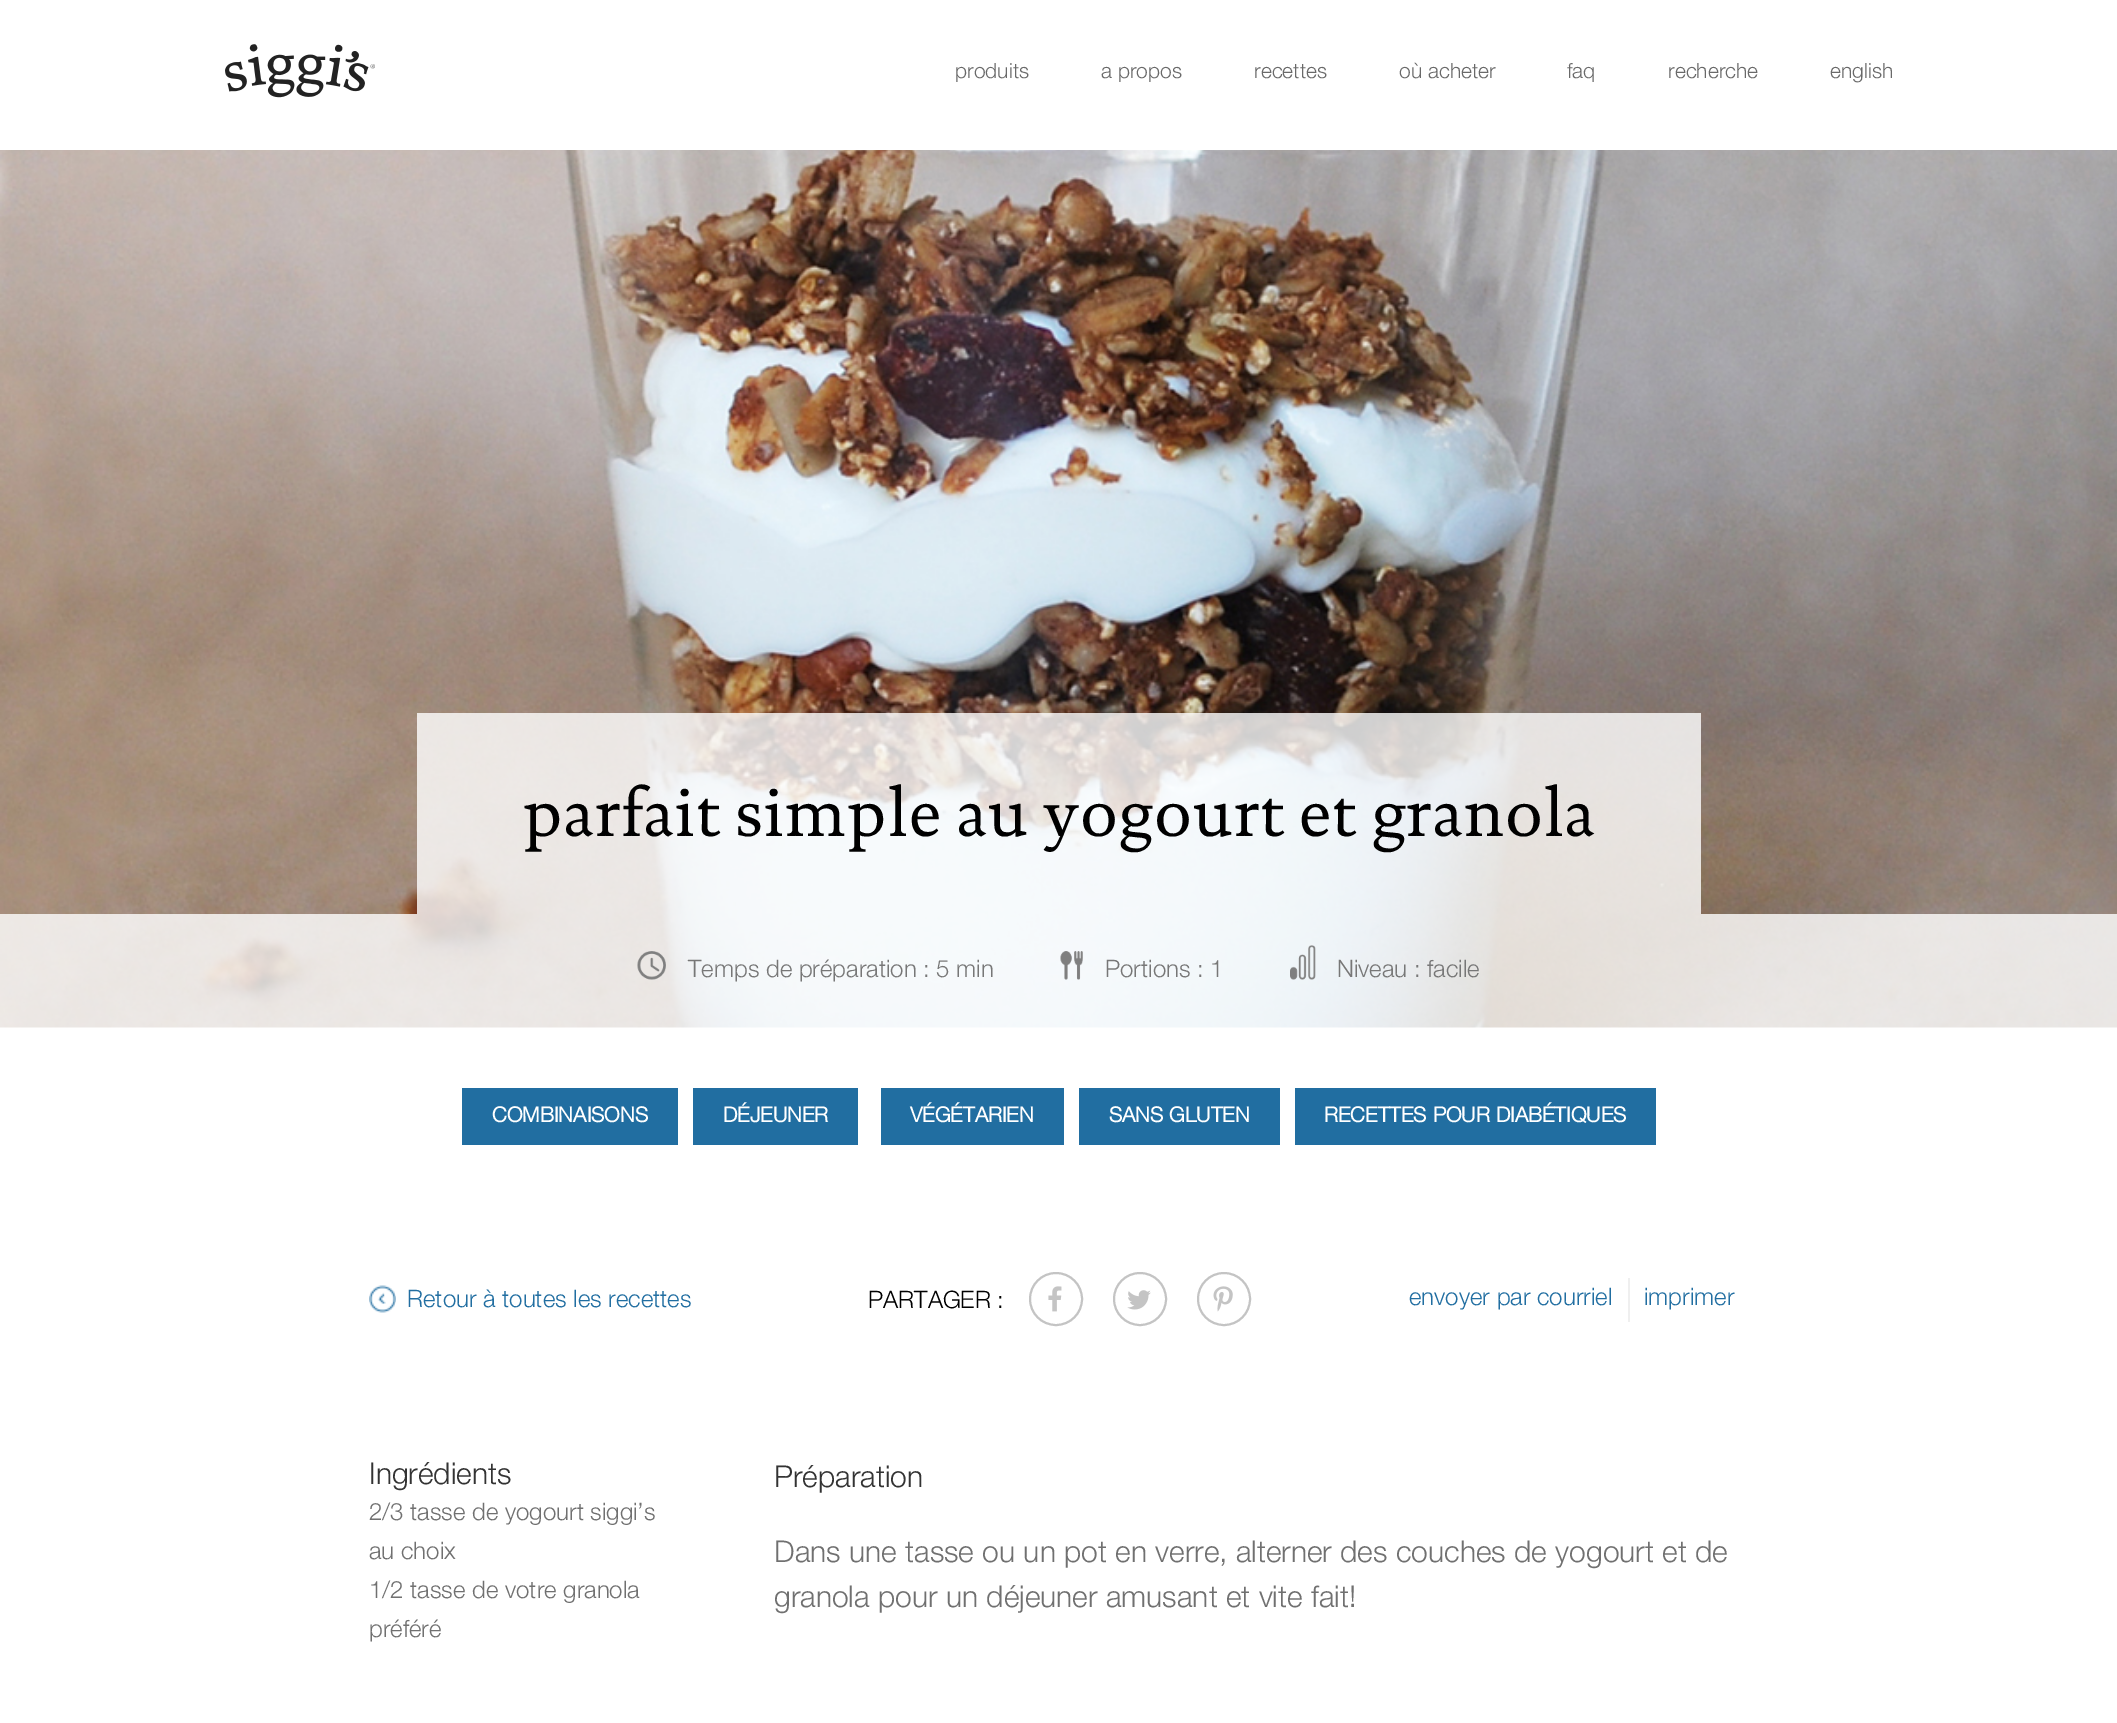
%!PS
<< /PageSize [2117 1723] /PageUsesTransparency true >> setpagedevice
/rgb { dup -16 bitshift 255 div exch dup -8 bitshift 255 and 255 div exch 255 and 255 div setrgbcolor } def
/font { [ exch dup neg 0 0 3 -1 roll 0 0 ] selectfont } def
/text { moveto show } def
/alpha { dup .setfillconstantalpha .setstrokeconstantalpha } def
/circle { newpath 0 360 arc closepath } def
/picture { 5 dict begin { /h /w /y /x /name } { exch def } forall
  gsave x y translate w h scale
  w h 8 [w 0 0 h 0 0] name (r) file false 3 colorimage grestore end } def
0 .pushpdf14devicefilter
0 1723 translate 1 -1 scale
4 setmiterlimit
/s1 { /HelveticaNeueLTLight-Regular 21 font 16#696969 rgb } def
/s2 { /HelveticaNeueLTLight-Regular 24 font 16#777777 rgb } def
/s3 { /HelveticaNeueLTLight-Bold 21 font 16#FFFFFF rgb } def
/s4 { /HelveticaNeueLTLight-Regular 24 font 16#216EA1 rgb } def
/s5 { /HelveticaNeueLTLight-Regular 24 font 16#000000 rgb } def
/s6 { /HelveticaNeueLTLight-Regular 30 font 16#333333 rgb } def
/s7 { /HelveticaNeueLTLight-Regular 24 font 16#707070 rgb } def
/s8 { /HelveticaNeueLTLight-Regular 30 font 16#707070 rgb } def
16#FFFFFF rgb
0 0 2117 1723 rectfill
(pic1.raw) 225 44 150 54 picture
s1
(produits) 955 78 text
(a propos) 1101 78 text
(recettes) 1254 78 text
(où acheter) 1399 78 text
(faq) 1567 78 text
(recherche) 1668 78 text
(english) 1830 78 text
(pic2.raw) 0 150 2117 878 picture
0.8 alpha
16#FFFFFF rgb
417 713 1284 201 rectfill
/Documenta-Regular 67.5 font
1 alpha
16#000000 rgb
523 836 moveto 1.1 0 (parfait simple au yogourt et granola) ashow
0.8 alpha
16#FFFFFF rgb
0 914 2117 114 rectfill
1 alpha
(pic3.raw) 637 951 29 29 picture
s2
(Temps de préparation : 5 min) 688 977 text
(pic4.raw) 1060 951 23 29 picture
(Portions : 1) 1105 977 text
(pic5.raw) 1290 945 26 35 picture
(Niveau : facile) 1337 977 text
16#216EA1 rgb
462 1088 216 57 rectfill
s3
(COMBINAISONS) 492 1122 text
16#216EA1 rgb
693 1088 165 57 rectfill
s3
(DÉJEUNER) 723 1122 text
16#216EA1 rgb
881 1088 183 57 rectfill
s3
(VÉGÉTARIEN) 910 1122 text
16#216EA1 rgb
1079 1088 201 57 rectfill
s3
(SANS GLUTEN) 1109 1122 text
16#216EA1 rgb
1295 1088 361 57 rectfill
s3
(RECETTES POUR DIABÉTIQUES) 1324 1122 text
(pic6.raw) 369 1285 27 28 picture
s4
(Retour à toutes les recettes) 407 1307 text
s5
(PARTAGER :) 868 1308 text
16#C4C4C4 rgb
2 setlinewidth
1056 1299 26 circle stroke
(pic7.raw) 1048 1286 14 26 picture
1140 1299 26 circle stroke
(pic8.raw) 1127 1290 24 20 picture
1224 1299 26 circle stroke
(pic9.raw) 1213 1286 20 26 picture
16#EFEFEF rgb
1628 1278 2 44 rectfill
s4
(envoyer par courriel) 1409 1305 text
(imprimer) 1644 1305 text
s6
(Ingrédients) 369 1484 text
s7
(2/3 tasse de yogourt siggi’s) 369 1520 text
(au choix) 369 1559 text
(1/2 tasse de votre granola) 369 1598 text
(préféré) 369 1637 text
s6
(Préparation) 774 1487 text
s8
(Dans une tasse ou un pot en verre, alterner des couches de yogourt et de) 774 1562 text
(granola pour un déjeuner amusant et vite fait!) 774 1607 text
.poppdf14devicefilter showpage
